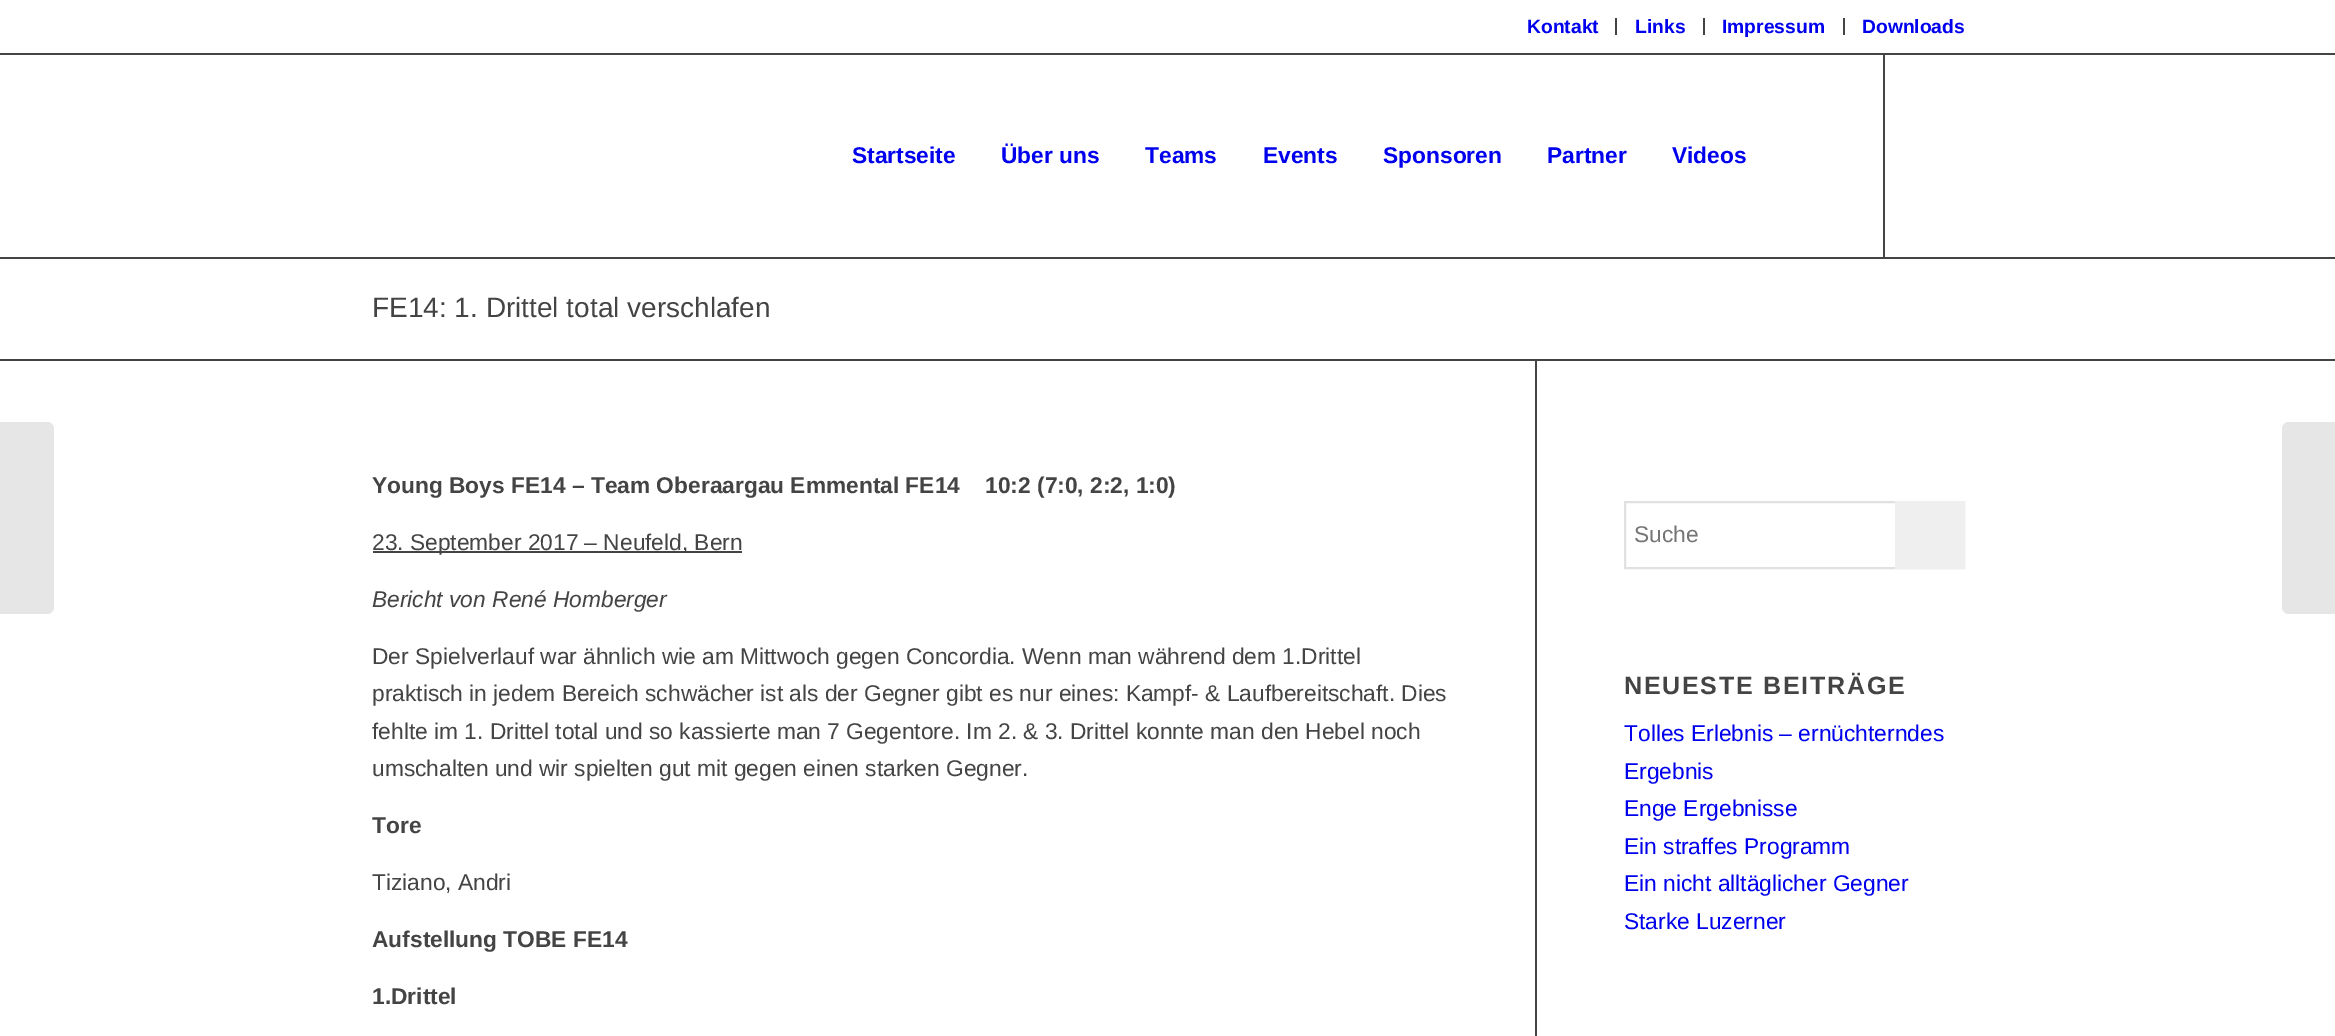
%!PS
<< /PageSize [2335 1036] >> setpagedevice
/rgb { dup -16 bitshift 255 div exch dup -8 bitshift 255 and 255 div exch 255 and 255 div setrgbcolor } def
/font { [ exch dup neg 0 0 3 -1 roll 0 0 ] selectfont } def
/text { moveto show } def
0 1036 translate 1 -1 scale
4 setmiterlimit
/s1 { /LiberationSans-Bold 19.25 font 16#0000EE rgb } def
/s2 { /LiberationSans-Bold 22.75 font 16#0000EE rgb } def
/s3 { /LiberationSans-Regular 28 font 16#444444 rgb } def
/s4 { /LiberationSans-Bold 22.75 font 16#444444 rgb } def
/s5 { /LiberationSans-Regular 22.75 font 16#444444 rgb } def
/s6 { /LiberationSans-Italic 22.75 font 16#444444 rgb } def
/s7 { /LiberationSans-Regular 22.75 font 16#757575 rgb } def
/s8 { /LiberationSans-Regular 22.75 font 16#0000EE rgb } def
16#FFFFFF rgb
0 0 2335 1036 rectfill
16#444444 rgb
1615 18 2 17 rectfill
s1
(Kontakt) 1527 33 text
16#444444 rgb
1703 18 2 17 rectfill
s1
(Links) 1635 33 text
16#444444 rgb
1843 18 2 17 rectfill
s1
(Impressum) 1722 33 text
(Downloads) 1862 33 text
16#444444 rgb
0 53 2335 2 rectfill
1883 54 2 203 rectfill
s2
(Startseite) 852 163 text
(Über uns) 1001 163 text
(Teams) 1145 163 text
(Events) 1263 163 text
(Sponsoren) 1383 163 text
(Partner) 1547 163 text
(Videos) 1672 163 text
16#E6E6E6 rgb
0 422 moveto 47 422 lineto 51 422 54 425 54 429 curveto 54 607 lineto 54 611 51 614 47 614 curveto 0 614 lineto closepath fill
16#444444 rgb
0 257 2335 2 rectfill
s3
(FE14: 1. Drittel total verschlafen) 372 317 text
0 359 2335 2 rectfill
1535 361 2 675 rectfill
s4
(Young Boys FE14 – Team Oberaargau Emmental FE14    10:2 \(7:0, 2:2, 1:0\)) 372 493 text
373 551 369 2 rectfill
s5
(23. September 2017 – Neufeld, Bern) 372 550 text
s6
(Bericht von René Homberger) 372 607 text
s5
(Der Spielverlauf war ähnlich wie am Mittwoch gegen Concordia. Wenn man während dem 1.Drittel) 372 664 text
(praktisch in jedem Bereich schwächer ist als der Gegner gibt es nur eines: Kampf- & Laufbereitschaft. Dies) 372 701 text
(fehlte im 1. Drittel total und so kassierte man 7 Gegentore. Im 2. & 3. Drittel konnte man den Hebel noch) 372 739 text
(umschalten und wir spielten gut mit gegen einen starken Gegner.) 372 776 text
s4
(Tore) 372 833 text
s5
(Tiziano, Andri) 372 890 text
s4
(Aufstellung TOBE FE14) 372 947 text
(1.Drittel) 372 1004 text
16#E1E1E1 rgb
2 setlinewidth
1625 502 339 66 rectstroke
s7
(Suche) 1634 542 text
16#EFEFEF rgb
1895 501 70 68 rectfill
/LiberationSans-Bold 25 font
16#444444 rgb
1624 694 moveto 1.75 0 (NEUESTE BEITRÄGE) ashow
s8
(Tolles Erlebnis – ernüchterndes) 1624 741 text
(Ergebnis) 1624 779 text
(Enge Ergebnisse) 1624 816 text
(Ein straffes Programm) 1624 854 text
(Ein nicht alltäglicher Gegner) 1624 891 text
(Starke Luzerner) 1624 929 text
16#E6E6E6 rgb
2289 422 moveto 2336 422 lineto 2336 614 lineto 2289 614 lineto 2285 614 2282 611 2282 607 curveto 2282 429 lineto 2282 425 2285 422 2289 422 curveto closepath fill
showpage
